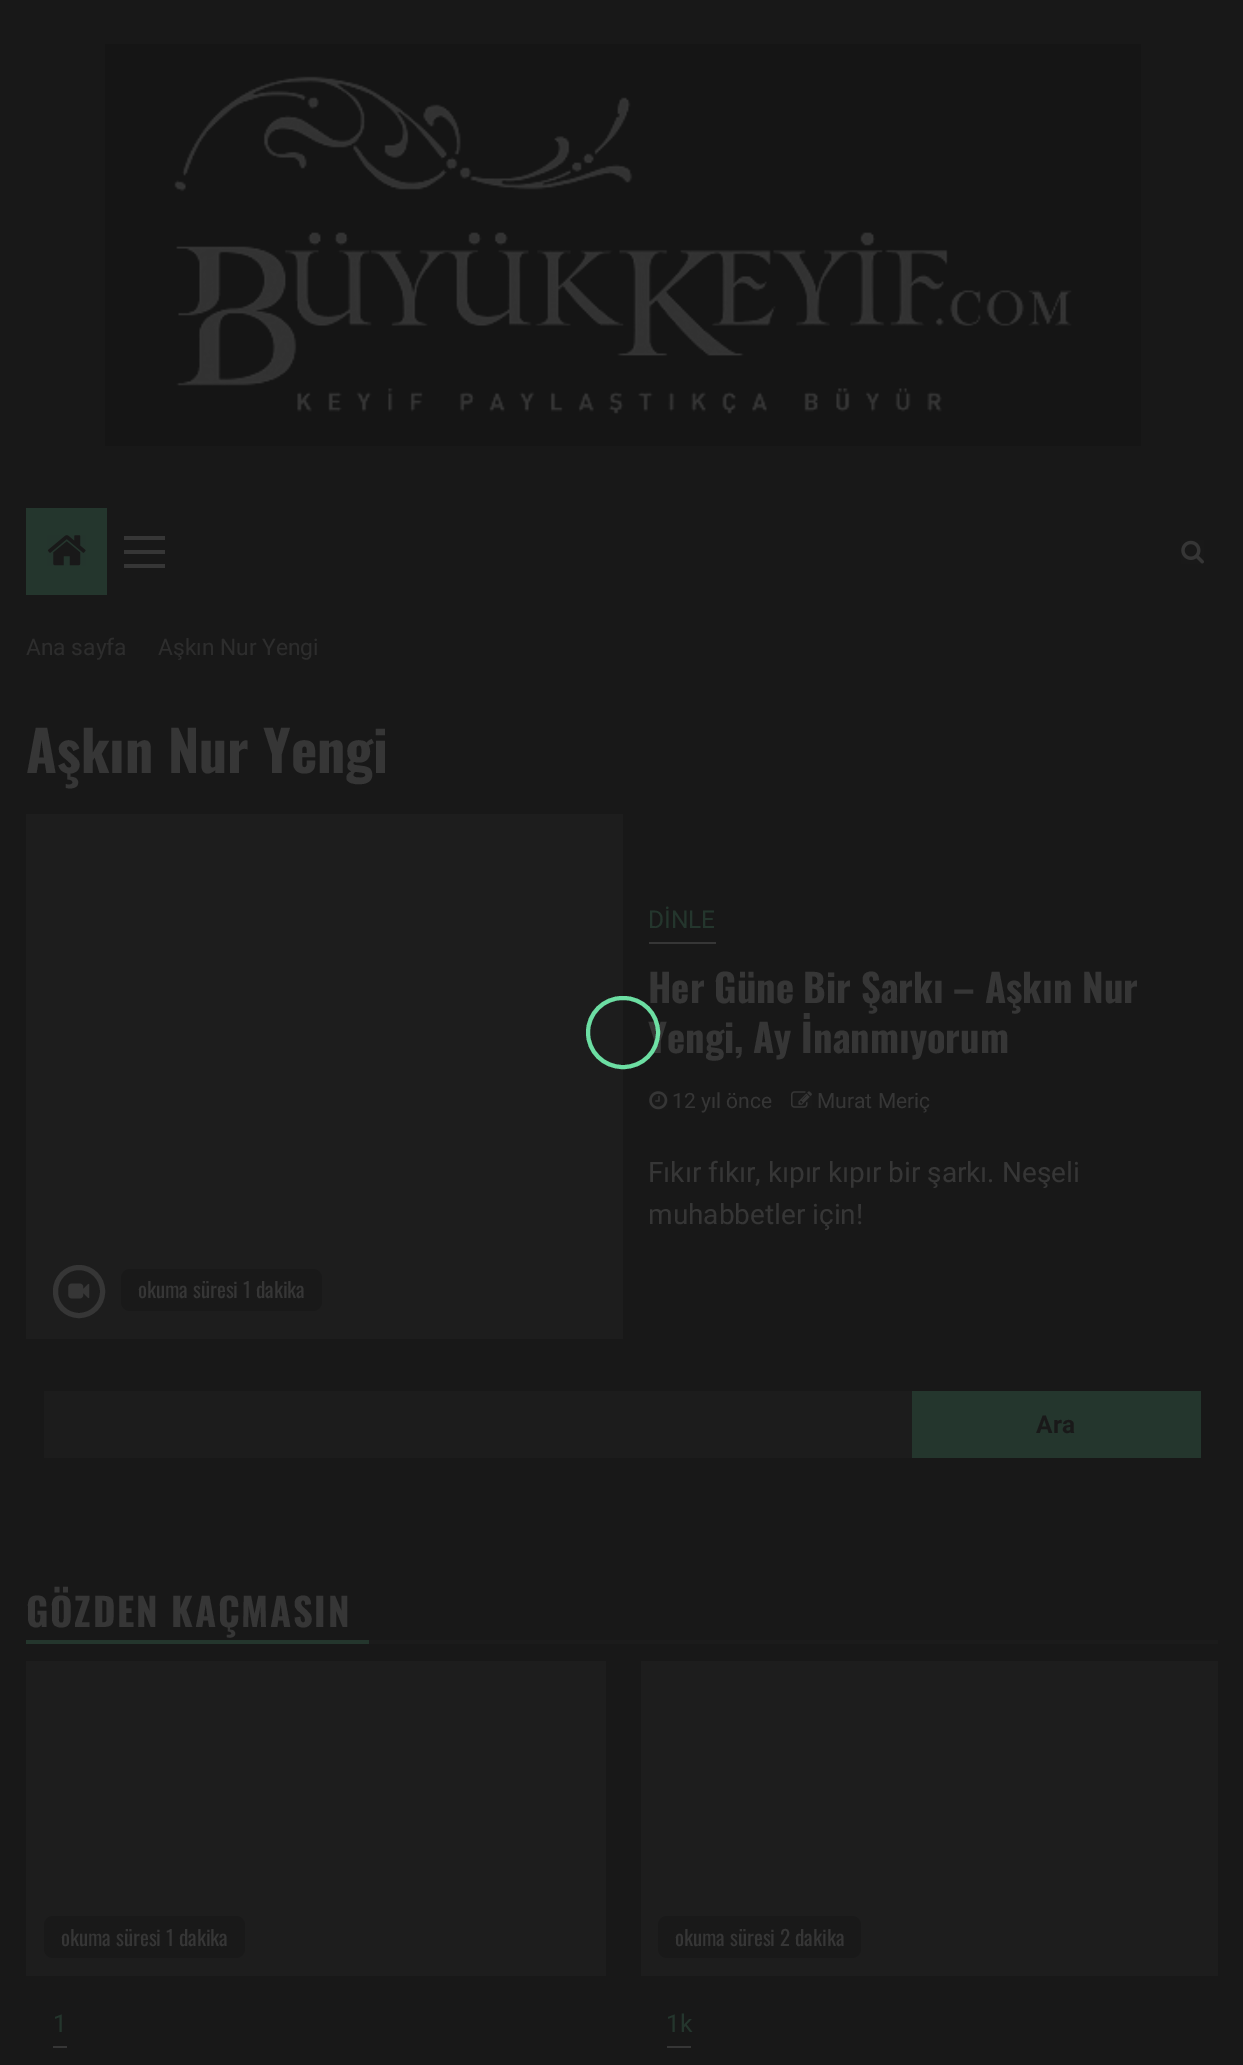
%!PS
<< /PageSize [1243 2065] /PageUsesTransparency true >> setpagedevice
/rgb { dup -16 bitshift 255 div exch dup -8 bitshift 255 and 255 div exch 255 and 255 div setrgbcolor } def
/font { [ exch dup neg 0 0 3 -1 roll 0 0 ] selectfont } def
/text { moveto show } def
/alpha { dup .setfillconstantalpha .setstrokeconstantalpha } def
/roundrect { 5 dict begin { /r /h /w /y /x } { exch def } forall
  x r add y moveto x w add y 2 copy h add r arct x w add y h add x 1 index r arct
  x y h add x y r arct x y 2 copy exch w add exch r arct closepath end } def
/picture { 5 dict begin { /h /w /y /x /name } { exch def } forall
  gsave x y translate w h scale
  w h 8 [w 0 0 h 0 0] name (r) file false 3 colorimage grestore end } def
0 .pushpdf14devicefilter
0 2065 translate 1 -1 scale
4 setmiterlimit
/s1 { /Roboto-Regular 22.75 font 16#2D2D2D rgb } def
/s2 { /Oswald-Bold 56 font 16#363636 rgb } def
/s3 { /Roboto-Regular 24.5 font 16#24362D rgb } def
/s4 { /Oswald-Bold 38.5 font 16#363636 rgb } def
/s5 { /Roboto-Regular 21 font 16#363636 rgb } def
/s6 { /Roboto-Regular 28 font 16#363636 rgb } def
/s7 { /Oswald-Regular 21 font 16#363636 rgb } def
16#181818 rgb
0 0 1243 2065 rectfill
(pic1.raw) 105 44 1036 402 picture
16#24362D rgb
26 508 81 87 rectfill
(pic2.raw) 47 535 39 31 picture
16#363636 rgb
124 550 41 4 rectfill
124 536 41 4 rectfill
124 564 41 4 rectfill
(pic3.raw) 1181 540 23 24 picture
s1
(Ana sayfa) 26 655 text
(Aşkın Nur Yengi) 158 655 text
s2
(Aşkın Nur Yengi) 26 773 text
649 942 67 2 rectfill
s3
(DİNLE) 648 928 text
s4
(Her Güne Bir Şarkı – Aşkın Nur) 648 1003 text
(Yengi, Ay İnanmıyorum) 648 1053 text
(pic4.raw) 649 1091 19 19 picture
s5
(12 yıl önce) 672 1108 text
(pic5.raw) 791 1091 21 17 picture
(Murat Meriç) 817 1108 text
s6
(Fıkır fıkır, kıpır kıpır bir şarkı. Neşeli) 648 1182 text
(muhabbetler için!) 648 1224 text
16#1D1D1D rgb
26 814 597 525 rectfill
(pic6.raw) 68 1283 22 16 picture
16#363636 rgb
5 setlinewidth
55.5 1267.5 47 48 23.5 roundrect stroke
16#191919 rgb
121 1269 201 42 9 roundrect fill
s7
(okuma süresi 1 dakika) 138 1298 text
16#1C1C1C rgb
44 1391 868 67 rectfill
16#24362D rgb
912 1391 289 67 rectfill
/Roboto-Bold 24.5 font
16#191919 rgb
1036 1433 moveto 0.5 0 (Ara) ashow
16#24362D rgb
26 1640 343 4 rectfill
/Oswald-Bold 38.5 font
16#363636 rgb
26 1627 moveto 1.75 0 (GÖZDEN KAÇMASIN) ashow
16#1B1B1B rgb
369 1640 849 4 rectfill
16#1D1D1D rgb
26 1661 580 315 rectfill
16#191919 rgb
44 1916 201 42 9 roundrect fill
s7
(okuma süresi 1 dakika) 61 1946 text
53 2046 14 2 rectfill
s3
(1) 53 2032 text
16#1D1D1D rgb
641 1661 577 315 rectfill
16#191919 rgb
658 1916 203 42 9 roundrect fill
s7
(okuma süresi 2 dakika) 675 1946 text
667 2046 24 2 rectfill
s3
(1k) 666 2032 text
0.87 alpha
16#78FBB7 rgb
4 setlinewidth
588 998 70 69 34.5 roundrect stroke
.poppdf14devicefilter showpage
